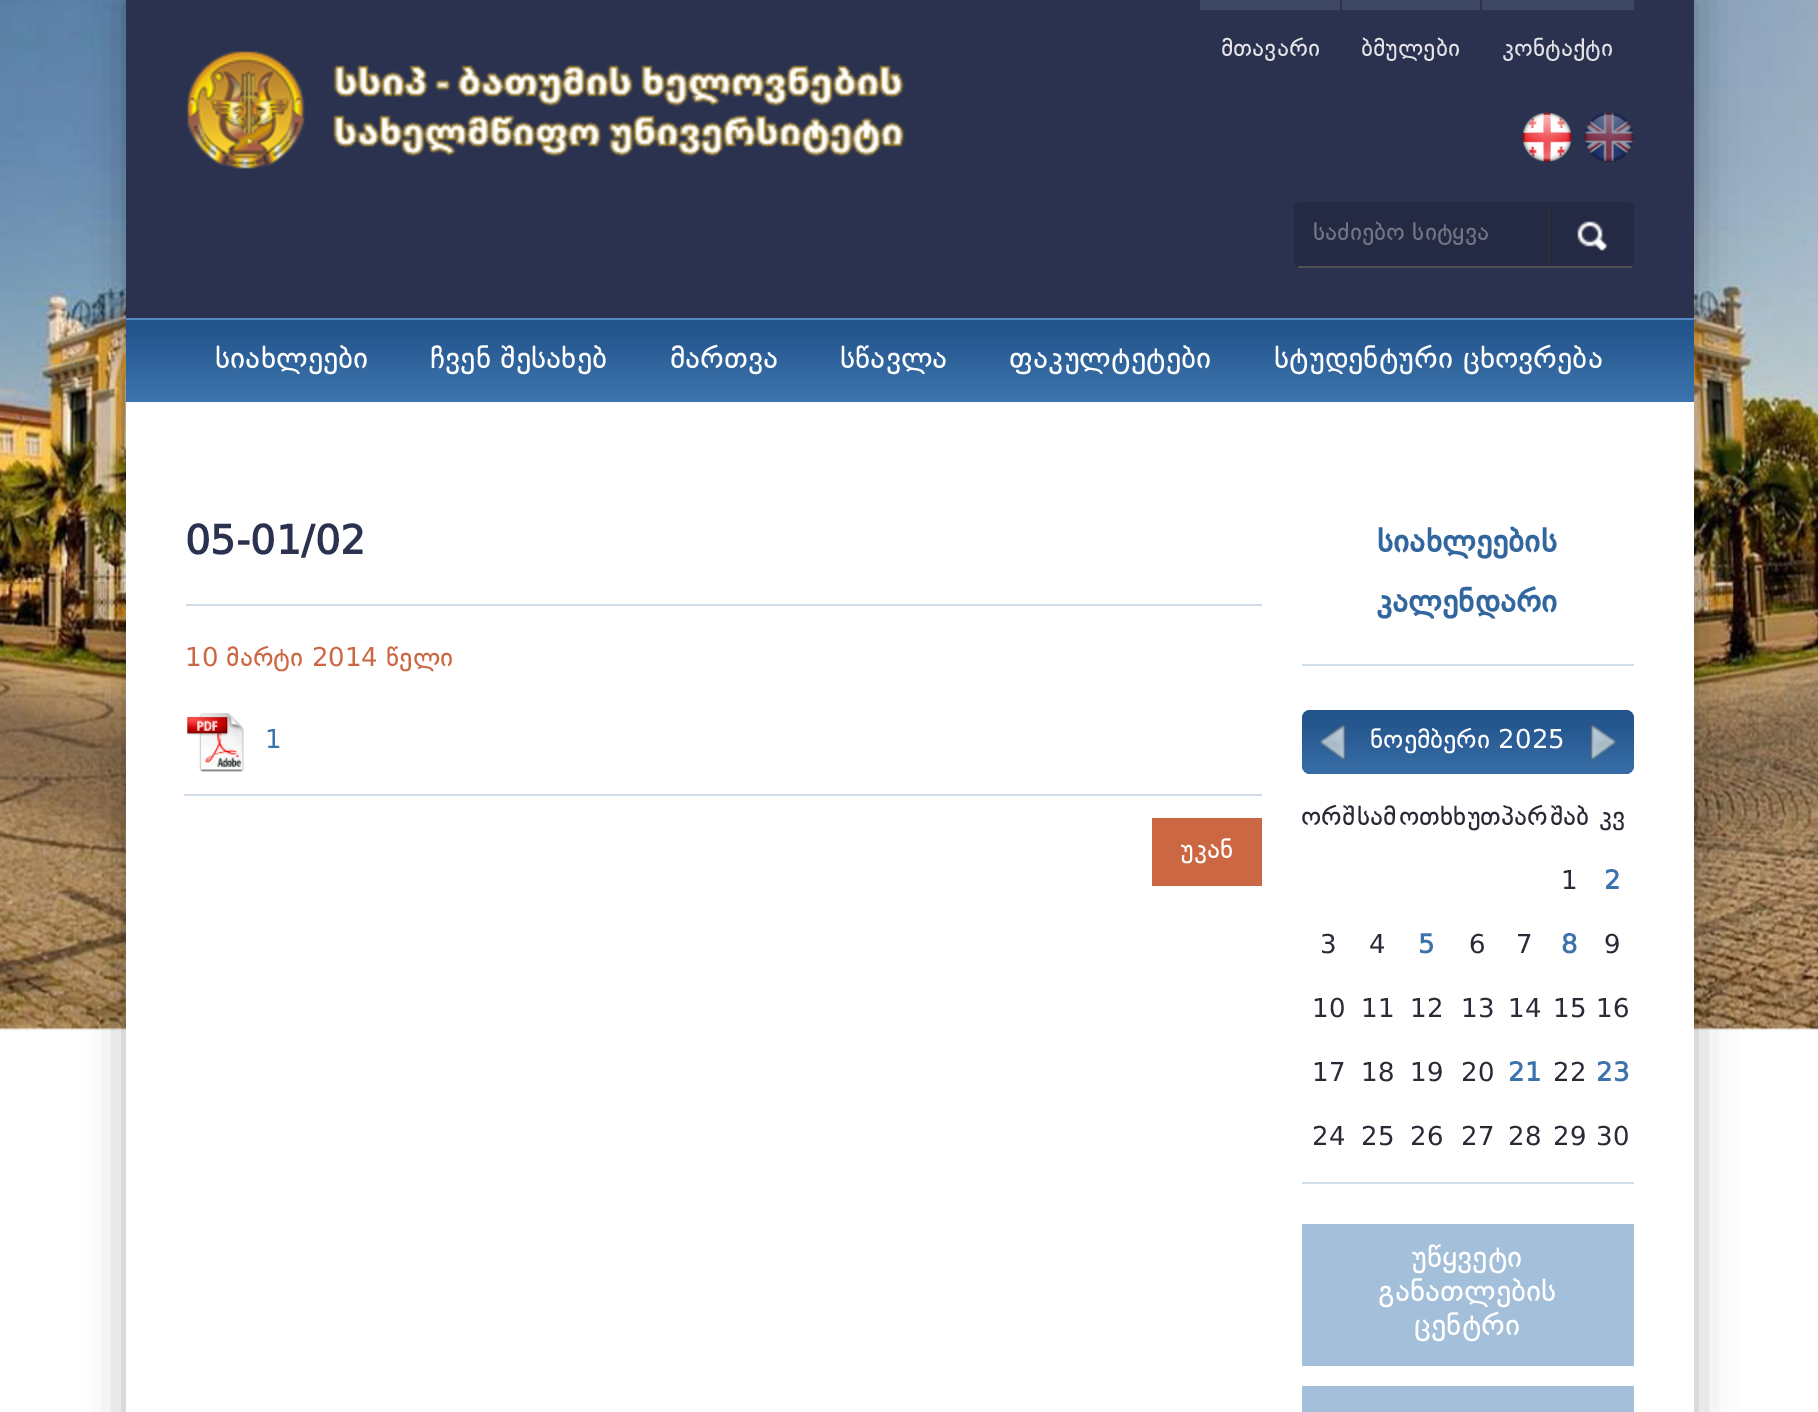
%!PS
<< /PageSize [1818 1412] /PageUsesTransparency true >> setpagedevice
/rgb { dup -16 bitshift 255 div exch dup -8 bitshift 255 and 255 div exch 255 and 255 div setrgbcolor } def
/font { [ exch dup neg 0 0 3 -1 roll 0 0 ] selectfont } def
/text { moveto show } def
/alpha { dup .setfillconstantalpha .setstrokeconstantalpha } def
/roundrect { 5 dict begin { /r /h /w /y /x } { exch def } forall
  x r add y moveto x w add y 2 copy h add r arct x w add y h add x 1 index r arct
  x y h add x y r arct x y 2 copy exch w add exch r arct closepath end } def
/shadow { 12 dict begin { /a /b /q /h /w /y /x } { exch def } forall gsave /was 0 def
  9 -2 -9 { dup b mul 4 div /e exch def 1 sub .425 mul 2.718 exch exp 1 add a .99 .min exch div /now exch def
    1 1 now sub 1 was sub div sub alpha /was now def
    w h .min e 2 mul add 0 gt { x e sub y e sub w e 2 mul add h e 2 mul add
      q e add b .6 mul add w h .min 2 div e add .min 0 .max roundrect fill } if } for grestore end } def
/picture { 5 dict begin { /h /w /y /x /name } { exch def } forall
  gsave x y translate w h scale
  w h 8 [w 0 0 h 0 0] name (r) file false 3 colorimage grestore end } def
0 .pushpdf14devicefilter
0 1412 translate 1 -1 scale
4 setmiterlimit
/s1 { /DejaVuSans-Regular 24 font 16#E3E3E6 rgb } def
/s2 { /DejaVuSans-Regular 24 font 16#717584 rgb } def
/s3 { /DejaVuSans-Regular 30 font 16#FFFFFF rgb } def
/s4 { /DejaVuSans-Bold 40 font 16#2B324F rgb } def
/s5 { /DejaVuSans-Regular 26 font 16#CB6743 rgb } def
/s6 { /DejaVuSans-Regular 26 font 16#3C73AC rgb } def
/s7 { /DejaVuSans-Regular 26 font 16#FFFFFF rgb } def
/s8 { /DejaVuSans-Bold 32 font 16#31669E rgb } def
/s9 { /DejaVuSans-Regular 26 font 16#282A35 rgb } def
/s10 { /DejaVuSans-Bold 26 font 16#3C73AC rgb } def
16#FFFFFF rgb
0 0 1818 1412 rectfill
(pic1.raw) 0 0 1818 1031 picture
16#000000 rgb
126 0 1568 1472 0 20 0.28 shadow
16#FFFFFF rgb
126 402 1568 1010 rectfill
16#2B324F rgb
126 0 1568 318 rectfill
(pic2.raw) 187 51 718 118 picture
16#3E4764 rgb
1200 0 140 10 rectfill
s1
(მთავარი) 1221 56 text
16#3E4764 rgb
1342 0 138 10 rectfill
s1
(ბმულები) 1361 56 text
16#3E4764 rgb
1482 0 152 10 rectfill
s1
(კონტაქტი) 1502 56 text
(pic3.raw) 1522 112 50 50 picture
(pic4.raw) 1584 112 50 50 picture
16#242A43 rgb
1294 202 340 66 6 roundrect fill
16#505050 rgb
1298 266 334 2 rectfill
s2
(საძიებო სიტყვა) 1313 240 text
(pic5.raw) 1577 221 31 30 picture
16#2F2F2F rgb
1548 208 2 56 rectfill
16#528AC5 rgb
126 318 1568 2 rectfill
(pic6.raw) 126 320 1568 82 picture
s3
(სიახლეები) 215 368 text
(ჩვენ შესახებ) 430 368 text
(მართვა) 670 368 text
(სწავლა) 840 368 text
(ფაკულტეტები) 1009 368 text
(სტუდენტური ცხოვრება) 1274 368 text
16#D1DEEA rgb
186 604 1076 2 rectfill
s4
(05-01/02) 185 554 text
s5
(10 მარტი 2014 წელი) 185 666 text
16#D1DEEA rgb
184 794 1078 2 rectfill
(pic7.raw) 187 713 57 59 picture
s6
(1) 265 748 text
16#CB6743 rgb
1152 818 110 68 rectfill
s7
(უკან) 1180 858 text
16#D1DEEA rgb
1302 664 332 2 rectfill
s8
(სიახლეების) 1377 552 text
(კალენდარი) 1376 612 text
1302 710 332 64 8 roundrect fill
(pic8.raw) 1302 710 332 64 picture
(pic9.raw) 1318 723 29 38 picture
s7
(ნოემბერი 2025) 1370 748 text
(pic10.raw) 1589 723 29 38 picture
s9
(ორშ) 1301 825 text
(სამ) 1357 825 text
(ოთხხუთპარ) 1399 825 text
(შაბ) 1550 825 text
(კვ) 1599 825 text
(1) 1561 889 text
s10
(2) 1604 889 text
s9
(3) 1320 953 text
(4) 1369 953 text
s10
(5) 1418 953 text
s9
(6) 1469 953 text
(7) 1516 953 text
s10
(8) 1561 953 text
s9
(9) 1604 953 text
(10) 1312 1017 text
(11) 1361 1017 text
(12) 1410 1017 text
(13) 1461 1017 text
(14) 1508 1017 text
(15) 1553 1017 text
(16) 1596 1017 text
(17) 1312 1081 text
(18) 1361 1081 text
(19) 1410 1081 text
(20) 1461 1081 text
s10
(21) 1508 1081 text
s9
(22) 1553 1081 text
s10
(23) 1596 1081 text
s9
(24) 1312 1145 text
(25) 1361 1145 text
(26) 1410 1145 text
(27) 1461 1145 text
(28) 1508 1145 text
(29) 1553 1145 text
(30) 1596 1145 text
16#D1DEEA rgb
1302 1182 332 2 rectfill
16#A3BFD9 rgb
1302 1224 332 142 rectfill
s3
(უწყვეტი) 1411 1267 text
(განათლების) 1378 1301 text
(ცენტრი) 1414 1335 text
16#A3BFD9 rgb
1302 1386 332 26 rectfill
.poppdf14devicefilter showpage
